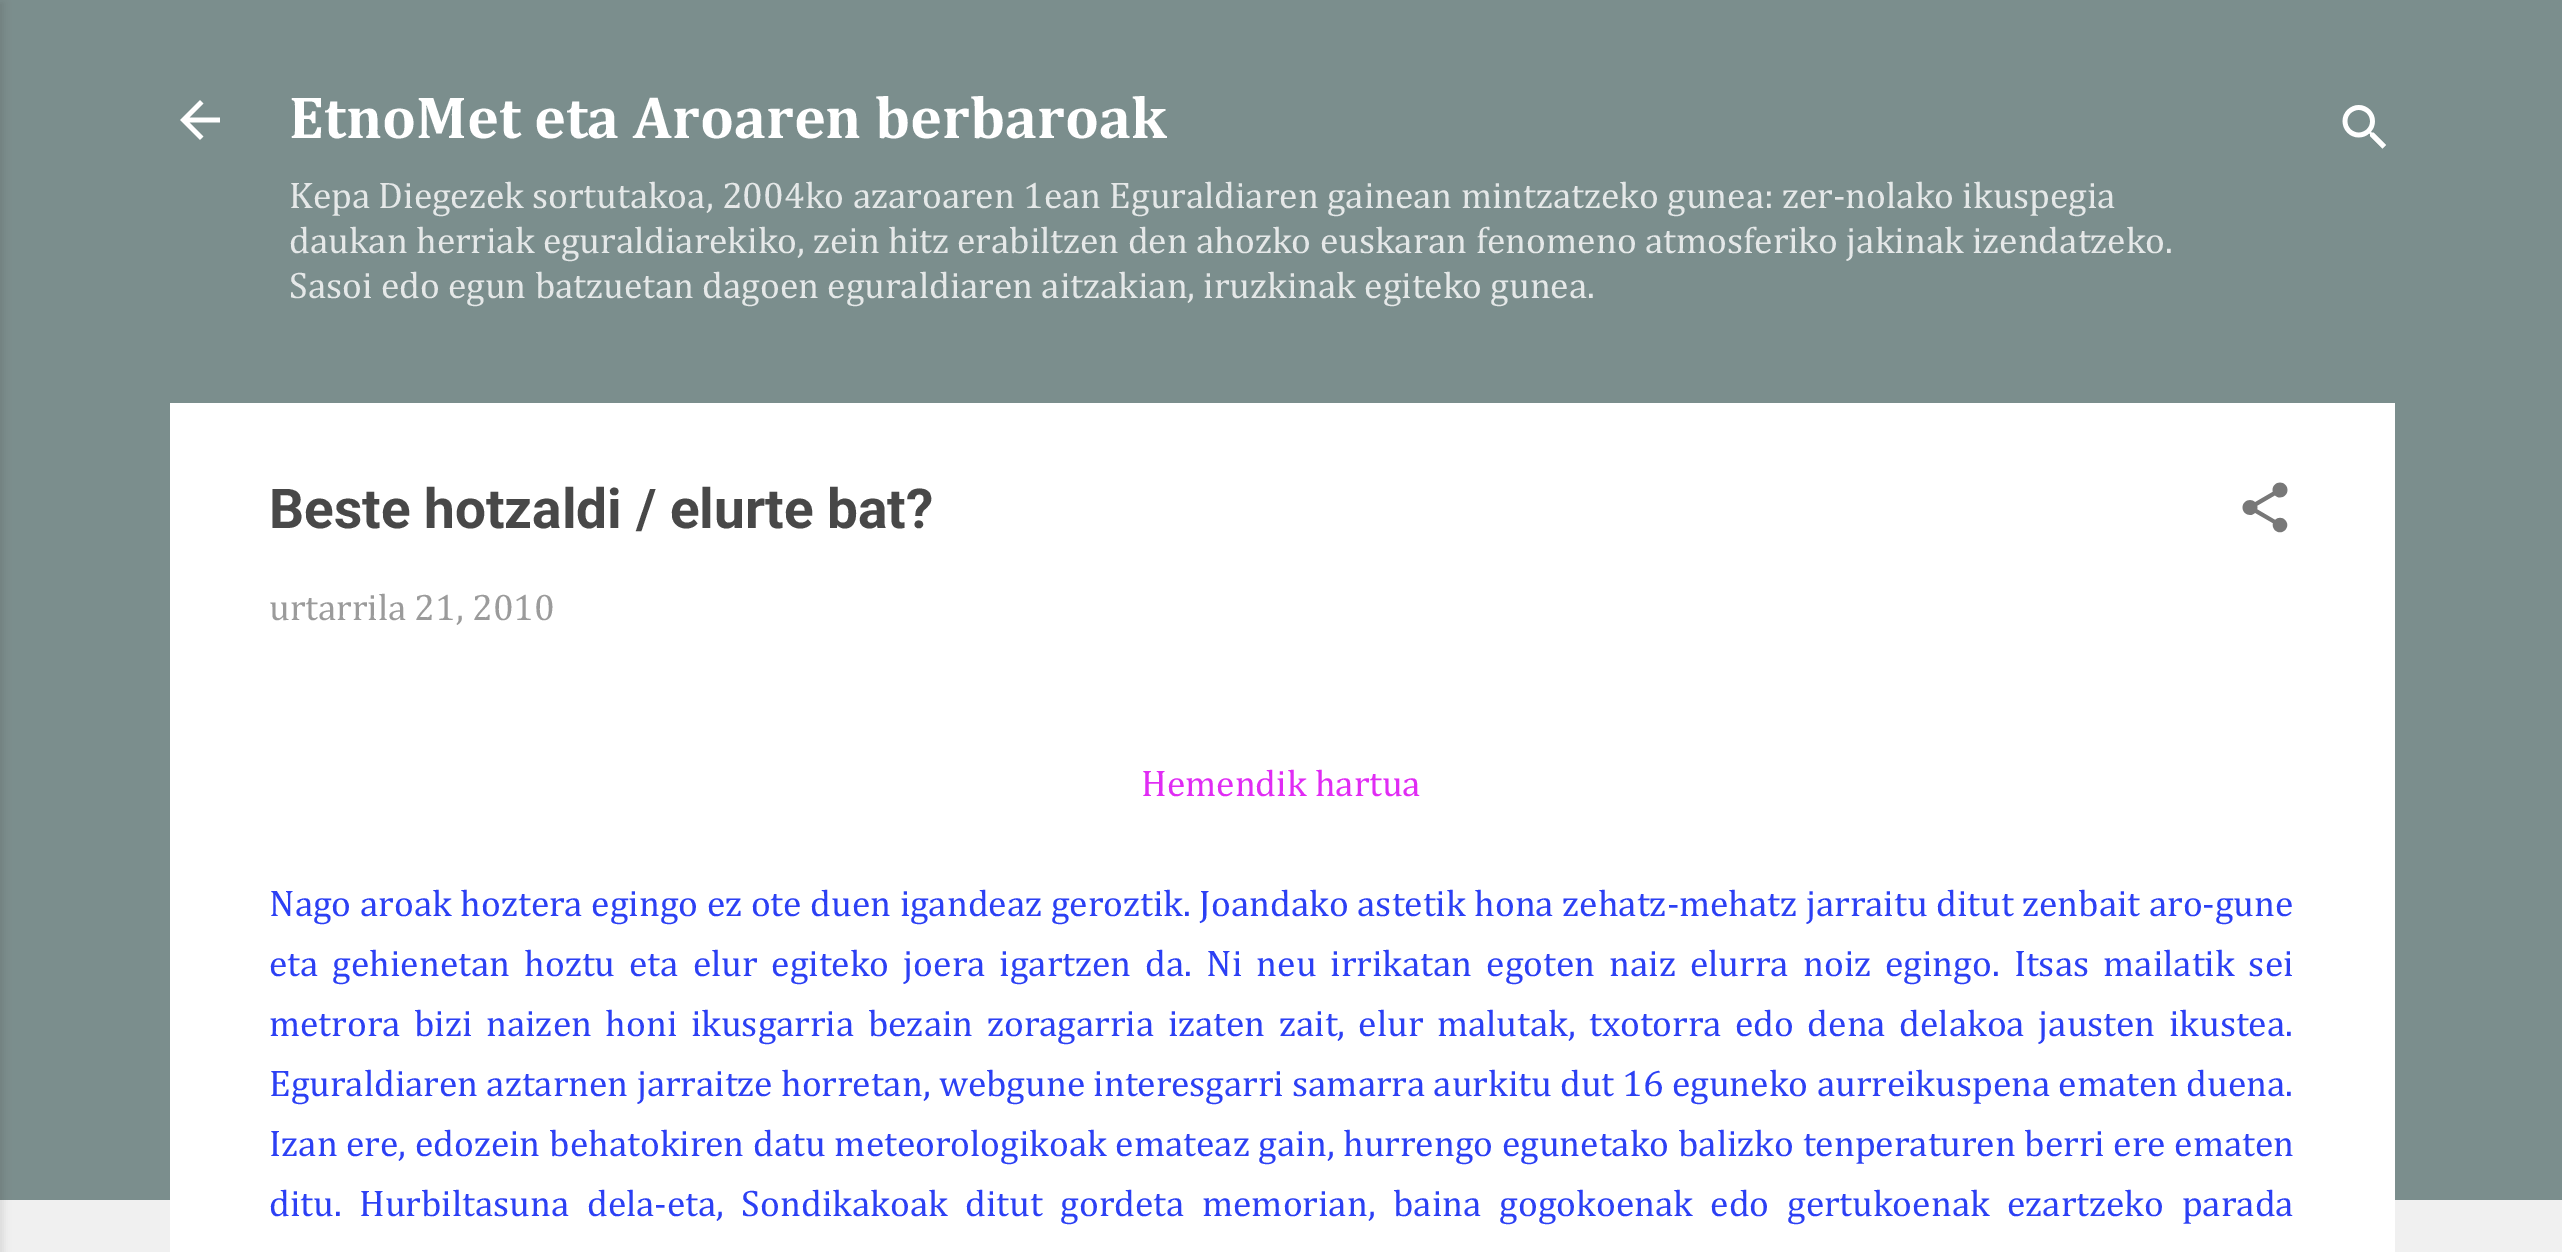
%!PS
<< /PageSize [2562 1252] /PageUsesTransparency true >> setpagedevice
/rgb { dup -16 bitshift 255 div exch dup -8 bitshift 255 and 255 div exch 255 and 255 div setrgbcolor } def
/font { [ exch dup neg 0 0 3 -1 roll 0 0 ] selectfont } def
/text { moveto show } def
/alpha { dup .setfillconstantalpha .setstrokeconstantalpha } def
/roundrect { 5 dict begin { /r /h /w /y /x } { exch def } forall
  x r add y moveto x w add y 2 copy h add r arct x w add y h add x 1 index r arct
  x y h add x y r arct x y 2 copy exch w add exch r arct closepath end } def
/shadow { 12 dict begin { /a /b /q /h /w /y /x } { exch def } forall gsave /was 0 def
  9 -2 -9 { dup b mul 4 div /e exch def 1 sub .425 mul 2.718 exch exp 1 add a .99 .min exch div /now exch def
    1 1 now sub 1 was sub div sub alpha /was now def
    w h .min e 2 mul add 0 gt { x e sub y e sub w e 2 mul add h e 2 mul add
      q e add b .6 mul add w h .min 2 div e add .min 0 .max roundrect fill } if } for grestore end } def
/picture { 5 dict begin { /h /w /y /x /name } { exch def } forall
  gsave x y translate w h scale
  w h 8 [w 0 0 h 0 0] name (r) file false 3 colorimage grestore end } def
0 .pushpdf14devicefilter
0 1252 translate 1 -1 scale
4 setmiterlimit
/s1 { /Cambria-Bold 60 font 16#FFFFFF rgb } def
/s2 { /Cambria-Regular 37.5 font 16#E5E8E8 rgb } def
/s3 { /Roboto-Bold 55 font 16#484848 rgb } def
/s4 { /Cambria-Regular 37.5 font 16#9B9B9B rgb } def
/s5 { /Cambria-Regular 37.5 font 16#E02CF4 rgb } def
/s6 { /Cambria-Regular 37.5 font 16#2C40F4 rgb } def
16#F0F0F0 rgb
0 0 2562 1252 rectfill
16#7B8E8D rgb
0 0 2562 1200 rectfill
16#000000 rgb
-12 3 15 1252 0 4 0.1 shadow
(pic1.raw) 180 100 40 40 picture
s1
(EtnoMet eta Aroaren berbaroak) 289 138 text
s2
(Kepa Diegezek sortutakoa, 2004ko azaroaren 1ean Eguraldiaren gainean mintzatzeko gunea: zer-nolako ikuspegia) 289 208 text
(daukan herriak eguraldiarekiko, zein hitz erabiltzen den ahozko euskaran fenomeno atmosferiko jakinak izendatzeko.) 289 253 text
(Sasoi edo egun batzuetan dagoen eguraldiaren aitzakian, iruzkinak egiteko gunea.) 289 298 text
(pic2.raw) 2342 105 44 44 picture
16#FFFFFF rgb
170 403 2225 849 rectfill
s3
(Beste hotzaldi / elurte bat?) 269 528 text
(pic3.raw) 2242 482 46 51 picture
s4
(urtarrila 21, 2010) 269 620 text
s5
(Hemendik hartua) 1141 796 text
16#2C40F4 rgb
269 916 moveto 0.4 0 32 (Nago aroak hoztera egingo ez ote duen igandeaz geroztik. Joandako astetik hona zehatz-mehatz jarraitu ditut zenbait aro-gune) widthshow
269 976 moveto 5.9 0 32 (eta gehienetan hoztu eta elur egiteko joera igartzen da. Ni neu irrikatan egoten naiz elurra noiz egingo. Itsas mailatik sei) widthshow
269 1036 moveto 5.25 0 32 (metrora bizi naizen honi ikusgarria bezain zoragarria izaten zait, elur malutak, txotorra edo dena delakoa jausten ikustea.) widthshow
(Eguraldiaren aztarnen jarraitze horretan, webgune interesgarri samarra aurkitu dut 16 eguneko aurreikuspena ematen duena.) 269 1096 text
269 1156 moveto 0.5 0 32 (Izan ere, edozein behatokiren datu meteorologikoak emateaz gain, hurrengo egunetako balizko tenperaturen berri ere ematen) widthshow
269 1216 moveto 9.4 0 32 (ditu. Hurbiltasuna dela-eta, Sondikakoak ditut gordeta memorian, baina gogokoenak edo gertukoenak ezartzeko parada) widthshow
.poppdf14devicefilter showpage
